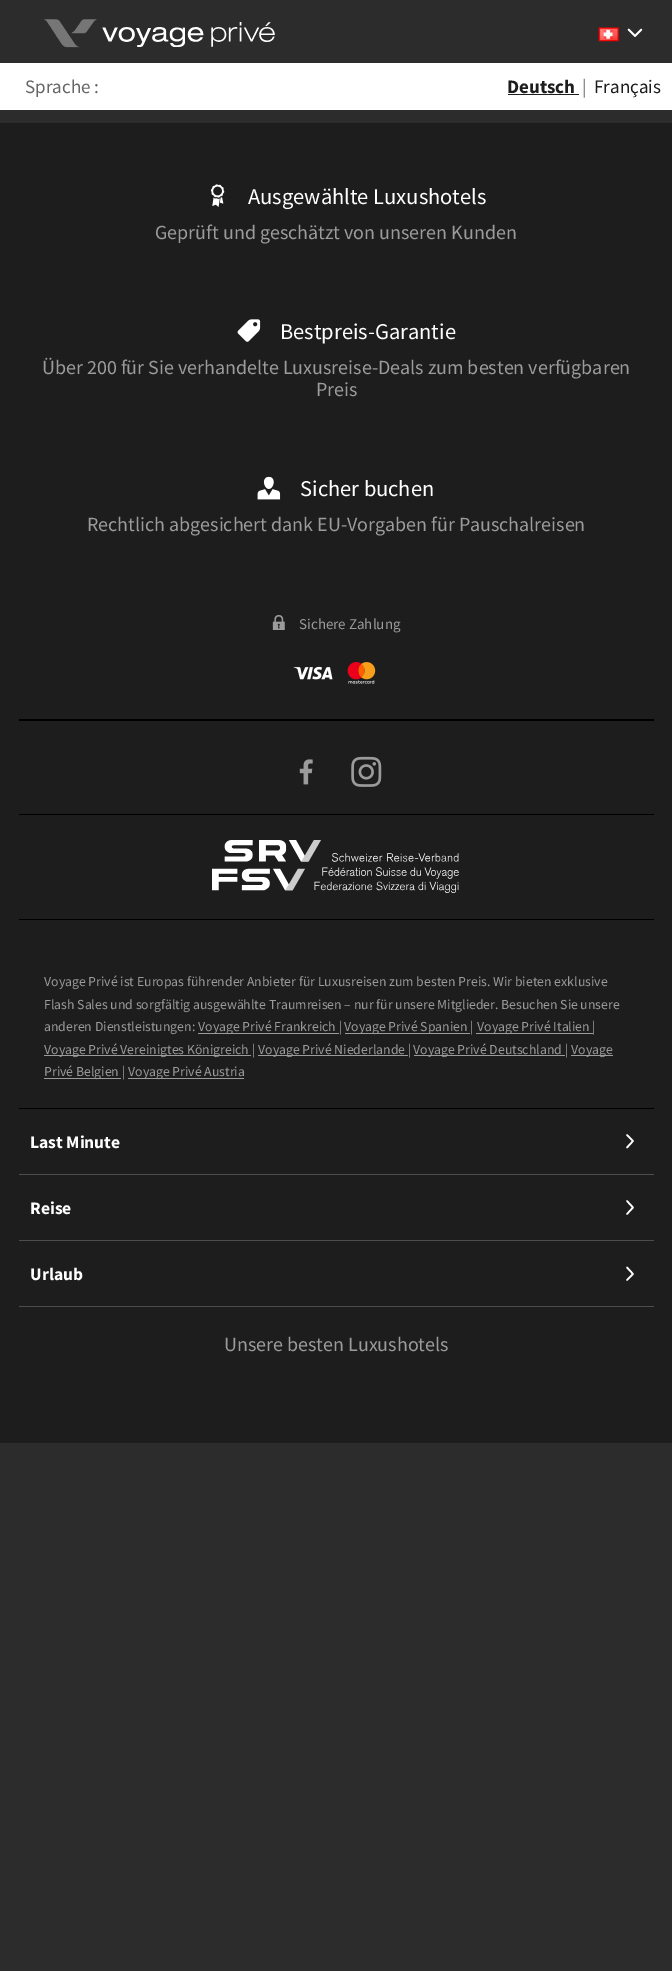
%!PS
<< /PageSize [672 1971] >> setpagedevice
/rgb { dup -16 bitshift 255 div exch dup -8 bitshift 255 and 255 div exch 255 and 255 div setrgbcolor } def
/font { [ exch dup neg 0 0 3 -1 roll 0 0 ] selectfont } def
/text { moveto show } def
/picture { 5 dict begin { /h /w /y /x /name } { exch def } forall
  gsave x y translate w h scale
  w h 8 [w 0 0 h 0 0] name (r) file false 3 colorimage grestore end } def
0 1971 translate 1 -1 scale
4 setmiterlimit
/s1 { /SourceSansPro-Regular 19 font 16#666666 rgb } def
/s2 { /SourceSansPro-Bold 19 font 16#1D1D1D rgb } def
/s3 { /SourceSansPro-Regular 19 font 16#1D1D1D rgb } def
/s4 { /SourceSansPro-Regular 22.5 font 16#FFFFFF rgb } def
/s5 { /SourceSansPro-Regular 20 font 16#9B9B9B rgb } def
/s6 { /SourceSansPro-Regular 15 font 16#9B9B9B rgb } def
/s7 { /SourceSansPro-Regular 13.75 font 16#9B9B9B rgb } def
/s8 { /SourceSansPro-Bold 17.5 font 16#FFFFFF rgb } def
16#2C2C2C rgb
0 0 672 1971 rectfill
(pic1.raw) 44 19 231 29 picture
(pic2.raw) 598 27 21 15 picture
(pic3.raw) 627 28 16 9 picture
16#FFFFFF rgb
0 63 672 47 rectfill
s1
(Sprache :) 25 93 text
s2
(Deutsch) 507 93 text
508 94 71 1 rectfill
s1
(|) 582 93 text
s3
(Français) 594 93 text
0 123 672 1320 rectfill
(pic4.raw) 210 184 15 23 picture
s4
(Ausgewählte Luxushotels) 248 204 text
s5
(Geprüft und geschätzt von unseren Kunden) 155 239 text
(pic5.raw) 237 319 24 23 picture
s4
(Bestpreis-Garantie) 280 339 text
s5
(Über 200 für Sie verhandelte Luxusreise-Deals zum besten verfügbaren) 42 374 text
(Preis) 316 396 text
(pic6.raw) 257 476 24 24 picture
s4
(Sicher buchen) 300 496 text
s5
(Rechtlich abgesichert dank EU-Vorgaben für Pauschalreisen) 87 531 text
16#000000 rgb
19 719 635 2 rectfill
(pic7.raw) 272 615 13 15 picture
s6
(Sichere Zahlung) 299 629 text
(pic8.raw) 293 666 40 14 picture
(pic9.raw) 347 662 29 22 picture
(pic10.raw) 299 759 14 26 picture
(pic11.raw) 351 756 31 31 picture
16#000000 rgb
19 814 635 1 rectfill
19 919 635 1 rectfill
(pic12.raw) 212 840 247 53 picture
s7
(Voyage Privé ist Europas führender Anbieter für Luxusreisen zum besten Preis. Wir bieten exklusive) 44 986 text
(Flash Sales und sorgfältig ausgewählte Traumreisen – nur für unsere Mitglieder. Besuchen Sie unsere) 44 1009 text
(anderen Dienstleistungen:) 44 1031 text
198 1033 141 1 rectfill
(Voyage Privé Frankreich |) 198 1031 text
345 1033 125 1 rectfill
(Voyage Privé Spanien |) 344 1031 text
476 1033 117 1 rectfill
(Voyage Privé Italien |) 477 1031 text
44 1055 207 1 rectfill
(Voyage Privé Vereinigtes Königreich |) 44 1054 text
258 1055 150 1 rectfill
(Voyage Privé Niederlande |) 258 1054 text
414 1055 151 1 rectfill
(Voyage Privé Deutschland |) 413 1054 text
571 1055 42 1 rectfill
(Voyage) 571 1054 text
44 1078 77 1 rectfill
(Privé Belgien |) 44 1076 text
128 1078 116 1 rectfill
(Voyage Privé Austria) 128 1076 text
16#000000 rgb
19 1108 635 1 rectfill
16#4D4D4D rgb
19 1174 635 1 rectfill
s8
(Last Minute) 30 1148 text
1.6 setlinewidth
1 setlinecap
1 setlinejoin
627 1135 moveto 633 1141 lineto 627 1147.5 lineto stroke
16#4D4D4D rgb
19 1240 635 1 rectfill
s8
(Reise) 30 1214 text
627 1201 moveto 633 1207.5 lineto 627 1214 lineto stroke
16#4D4D4D rgb
19 1306 635 1 rectfill
s8
(Urlaub) 30 1280 text
627 1267.5 moveto 633 1274 lineto 627 1280 lineto stroke
s5
(Unsere besten Luxushotels) 224 1351 text
showpage
